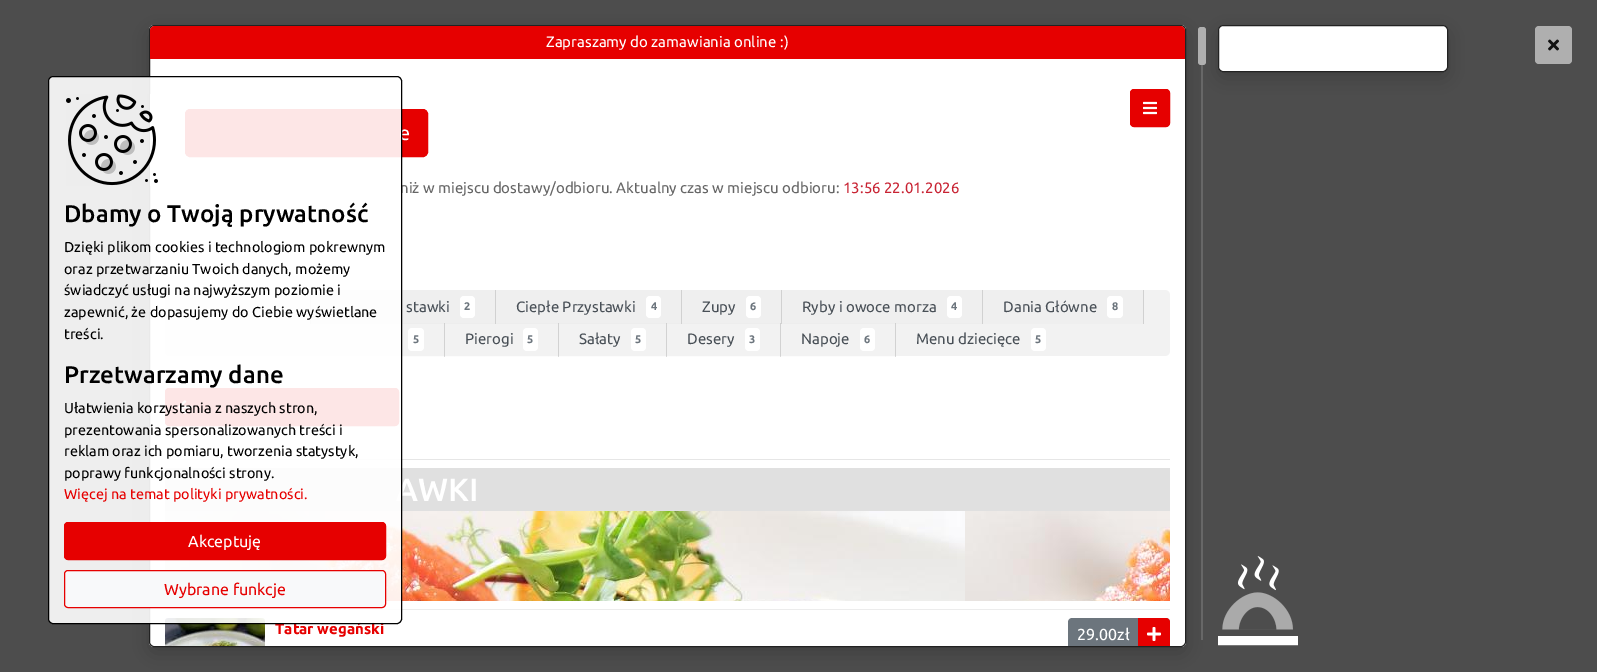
%!PS
<< /PageSize [1597 672] /PageUsesTransparency true >> setpagedevice
/rgb { dup -16 bitshift 255 div exch dup -8 bitshift 255 and 255 div exch 255 and 255 div setrgbcolor } def
/font { [ exch dup neg 0 0 3 -1 roll 0 0 ] selectfont } def
/text { moveto show } def
/alpha { dup .setfillconstantalpha .setstrokeconstantalpha } def
/roundrect { 5 dict begin { /r /h /w /y /x } { exch def } forall
  x r add y moveto x w add y 2 copy h add r arct x w add y h add x 1 index r arct
  x y h add x y r arct x y 2 copy exch w add exch r arct closepath end } def
/shadow { 12 dict begin { /a /b /q /h /w /y /x } { exch def } forall gsave /was 0 def
  9 -2 -9 { dup b mul 4 div /e exch def 1 sub .425 mul 2.718 exch exp 1 add a .99 .min exch div /now exch def
    1 1 now sub 1 was sub div sub alpha /was now def
    w h .min e 2 mul add 0 gt { x e sub y e sub w e 2 mul add h e 2 mul add
      q e add b .6 mul add w h .min 2 div e add .min 0 .max roundrect fill } if } for grestore end } def
/picture { 5 dict begin { /h /w /y /x /name } { exch def } forall
  gsave x y translate w h scale
  w h 8 [w 0 0 h 0 0] name (r) file false 3 colorimage grestore end } def
0 .pushpdf14devicefilter
0 672 translate 1 -1 scale
4 setmiterlimit
/s1 { /Ubuntu-Regular 20 font 16#FFFFFF rgb } def
/s2 { /Ubuntu-Regular 15 font 16#666666 rgb } def
/s3 { /Ubuntu-Medium 32 font 16#FFFFFF rgb } def
/s4 { /Ubuntu-Bold 15 font 16#E60000 rgb } def
/s5 { /Ubuntu-Medium 24 font 16#000000 rgb } def
/s6 { /Ubuntu-Regular 14.4 font 16#000000 rgb } def
/s7 { /Ubuntu-Regular 14.4 font 16#E60000 rgb } def
/s8 { /Ubuntu-Regular 16 font 16#FFFFFF rgb } def
/s9 { /Ubuntu-Regular 16 font 16#E60000 rgb } def
/s10 { /Ubuntu-Regular 15 font 16#FFFFFF rgb } def
/s11 { /Ubuntu-Regular 15 font 16#C82333 rgb } def
/s12 { /Ubuntu-Regular 15 font 16#495057 rgb } def
/s13 { /Ubuntu-Bold 11 font 16#6C757D rgb } def
16#4D4D4D rgb
0 0 1597 672 rectfill
16#1B1B1B rgb
149 31 1037 622 5 10 0.3 shadow
16#FFFFFF rgb
149 25 1037 622 5 roundrect fill
16#FCFCFC rgb
311 356 133 1 rectfill
781 356 114 1 rectfill
16#DBDBDB rgb
895 356 1 1 rectfill
16#FCFCFC rgb
667 356 113 1 rectfill
16#DBDBDB rgb
780 356 1 1 rectfill
16#FCFCFC rgb
559 356 107 1 rectfill
16#DBDBDB rgb
666 356 1 1 rectfill
16#FCFCFC rgb
445 356 113 1 rectfill
16#DBDBDB rgb
558 356 1 1 rectfill
444 356 1 1 rectfill
16#222222 rgb
149.5 25.5 1036 621 4.5 roundrect stroke
16#E60000 rgb
185.5 109.5 242 47 4.5 roundrect gsave fill grestore
stroke
s1
(e) 399 140 text
s2
(niż w miejscu dostawy/odbioru. Aktualny czas w miejscu odbioru:) 400 193 text
16#F2F2F2 rgb
165 290 1005 66 5 roundrect fill
16#D2D2D2 rgb
310 292 1 32 rectfill
16#EFEFEF rgb
311 290 184 33 rectfill
16#D2D2D2 rgb
444 323 1 33 rectfill
16#EDEDED rgb
311 323 185 1 rectfill
16#E60000 rgb
165.5 388.5 233 37 3.5 roundrect gsave fill grestore
stroke
(pic4.raw) 178 400 14 14 picture
16#E6E6E6 rgb
165 459 1005 1 rectfill
16#E0E0E0 rgb
165 468 1005 43 rectfill
s3
(AWKI) 396 501 text
(pic5.raw) 165 511 1005 90 picture
16#ECECEC rgb
165 609 1005 1 rectfill
(pic6.raw) 165 618 100 28 picture
s4
(Tatar wegański) 275 634 text
0.9 alpha
16#FFFFFF rgb
48.5 76.5 353 547 4.5 roundrect fill
1 alpha
16#000000 rgb
48.5 76.5 353 547 4.5 roundrect stroke
(pic1.raw) 66 94 92 92 picture
s5
(Dbamy o Twoją prywatność) 64 222 text
s6
(Dzięki plikom cookies i technologiom pokrewnym) 64 252 text
(oraz przetwarzaniu Twoich danych, możemy) 64 274 text
(świadczyć usługi na najwyższym poziomie i) 64 295 text
(zapewnić, że dopasujemy do Ciebie wyświetlane) 64 317 text
(treści.) 64 339 text
s5
(Przetwarzamy dane) 64 383 text
s6
(Ułatwienia korzystania z naszych stron,) 64 413 text
(prezentowania spersonalizowanych treści i) 64 435 text
(reklam oraz ich pomiaru, tworzenia statystyk,) 64 456 text
(poprawy funkcjonalności strony.) 64 478 text
s7
(Więcej na temat polityki prywatności.) 64 499 text
64.5 522.5 321 37 3.5 roundrect gsave fill grestore
stroke
s8
(Akceptuję) 188 547 text
16#F8F9FA rgb
64.5 570.5 321 37 3.5 roundrect gsave fill grestore
16#E60000 rgb
stroke
(Wybrane funkcje) 164 595 text
155 26 moveto 1180 26 lineto 1183 26 1185 28 1185 31 curveto 1185 59 lineto 150 59 lineto 150 31 lineto 150 28 152 26 155 26 curveto closepath fill
s10
(Zapraszamy do zamawiania online :\)) 546 47 text
16#AFAFAF rgb
1535 26 37 38 4 roundrect fill
(pic2.raw) 1548 39 11 12 picture
16#E60000 rgb
1130.5 89.5 39 37 3.5 roundrect gsave fill grestore
stroke
(pic3.raw) 1143 101 14 14 picture
s11
(13:56 22.01.2026) 843 193 text
16#D2D2D2 rgb
895 323 1 33 rectfill
780 323 1 33 rectfill
666 323 1 33 rectfill
558 323 1 33 rectfill
16#D0D0D0 rgb
444 323 1 1 rectfill
16#D1D1D1 rgb
495 290 1 34 rectfill
s12
(stawki) 406 312 text
16#FFFFFF rgb
460 296 15 22 4 roundrect fill
s13
(2) 464 310 text
16#EFEFEF rgb
496 290 185 33 rectfill
16#EDEDED rgb
496 323 285 1 rectfill
16#D0D0D0 rgb
666 323 1 1 rectfill
558 323 1 1 rectfill
16#D1D1D1 rgb
681 290 1 34 rectfill
s12
(Ciepłe Przystawki) 516 312 text
16#FFFFFF rgb
646 296 15 22 4 roundrect fill
s13
(4) 651 310 text
16#EFEFEF rgb
682 290 99 33 rectfill
16#D0D0D0 rgb
780 323 1 1 rectfill
16#D1D1D1 rgb
781 290 1 34 rectfill
s12
(Zupy) 702 312 text
16#FFFFFF rgb
746 296 15 22 4 roundrect fill
s13
(6) 750 310 text
16#EFEFEF rgb
782 290 200 33 rectfill
16#EDEDED rgb
782 323 201 1 rectfill
16#D0D0D0 rgb
895 323 1 1 rectfill
16#D1D1D1 rgb
982 290 1 34 rectfill
s12
(Ryby i owoce morza) 802 312 text
16#FFFFFF rgb
947 296 15 22 4 roundrect fill
s13
(4) 951 310 text
16#EFEFEF rgb
983 290 160 34 rectfill
16#D1D1D1 rgb
1143 290 1 34 rectfill
s12
(Dania Główne) 1003 312 text
16#FFFFFF rgb
1107 296 16 22 4 roundrect fill
s13
(8) 1112 310 text
16#FFFFFF rgb
408 328 16 23 4 roundrect fill
s13
(5) 413 343 text
s12
(Pierogi) 465 344 text
16#FFFFFF rgb
523 328 15 23 4 roundrect fill
s13
(5) 527 343 text
s12
(Sałaty) 579 344 text
16#FFFFFF rgb
631 328 15 23 4 roundrect fill
s13
(5) 635 343 text
s12
(Desery) 687 344 text
16#FFFFFF rgb
745 328 15 23 4 roundrect fill
s13
(3) 749 343 text
s12
(Napoje) 801 344 text
16#FFFFFF rgb
860 328 15 23 4 roundrect fill
s13
(6) 864 343 text
s12
(Menu dziecięce) 916 344 text
16#FFFFFF rgb
1031 328 15 23 4 roundrect fill
s13
(5) 1035 343 text
1072 618 moveto 1166 618 lineto 1168 618 1170 620 1170 622 curveto 1170 646 lineto 1068 646 lineto 1068 622 lineto 1068 620 1070 618 1072 618 curveto closepath fill
s8
(29.00zł) 1077 640 text
16#E60000 rgb
1138 618 moveto 1166 618 lineto 1168 618 1170 620 1170 622 curveto 1170 646 lineto 1138 646 lineto closepath fill
(pic7.raw) 1147 627 14 14 picture
(pic8.raw) 1218 556 80 90 picture
16#1B1B1B rgb
1218 31 230 47 5 10 0.3 shadow
16#AFAFAF rgb
1198 27 8 38 3 roundrect fill
16#676767 rgb
1201 65 2 575 rectfill
16#FFFFFF rgb
1218.5 25.5 229 46 4.5 roundrect gsave fill grestore
16#222222 rgb
stroke
.poppdf14devicefilter showpage
